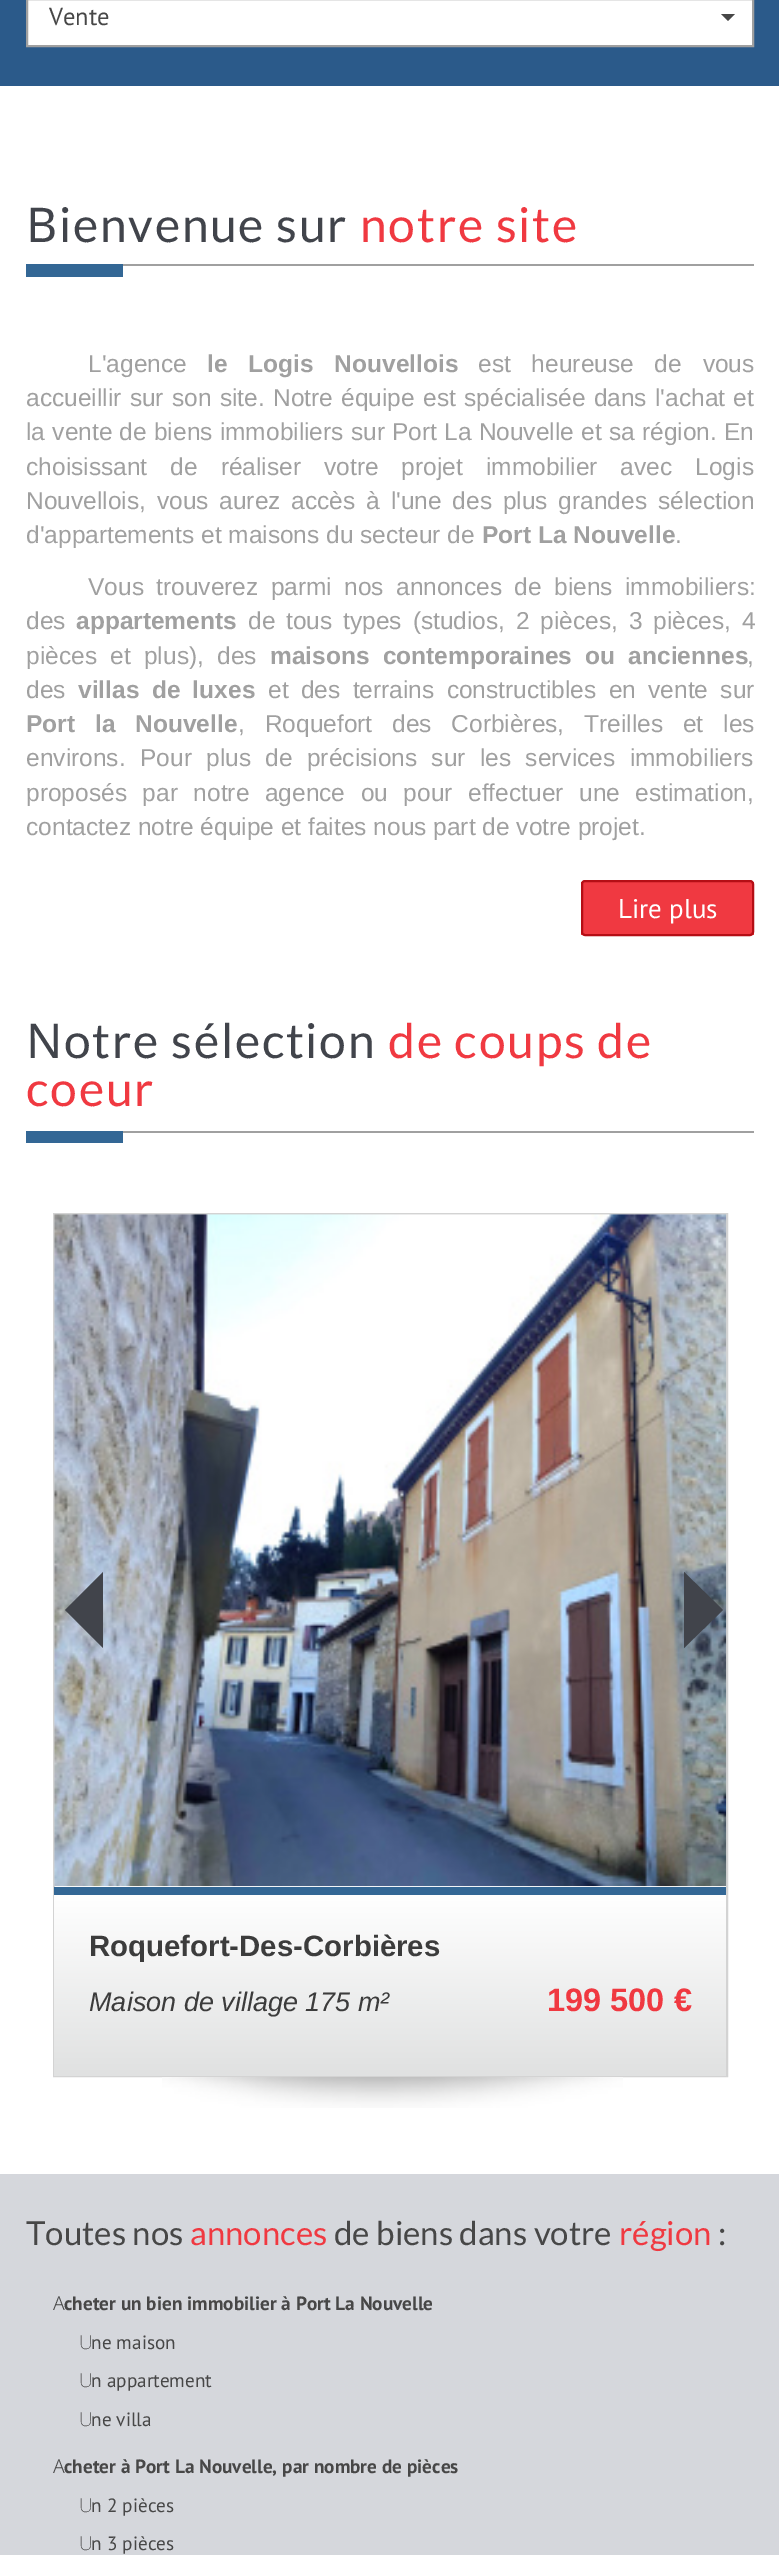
%!PS
<< /PageSize [779 2555] >> setpagedevice
/rgb { dup -16 bitshift 255 div exch dup -8 bitshift 255 and 255 div exch 255 and 255 div setrgbcolor } def
/font { [ exch dup neg 0 0 3 -1 roll 0 0 ] selectfont } def
/text { moveto show } def
/roundrect { 5 dict begin { /r /h /w /y /x } { exch def } forall
  x r add y moveto x w add y 2 copy h add r arct x w add y h add x 1 index r arct
  x y h add x y r arct x y 2 copy exch w add exch r arct closepath end } def
/picture { 5 dict begin { /h /w /y /x /name } { exch def } forall
  gsave x y translate w h scale
  w h 8 [w 0 0 h 0 0] name (r) file false 3 colorimage grestore end } def
0 2555 translate 1 -1 scale
4 setmiterlimit
/s1 { /PTSans-Regular 24.5 font 16#474747 rgb } def
/s2 { /LiberationSans-Regular 24.5 font 16#A0A0A0 rgb } def
/s3 { /LiberationSans-Bold 24.5 font 16#A0A0A0 rgb } def
/s4 { /PTSans-Regular 27 font 16#FFFFFF rgb } def
/s5 { /LiberationSans-Bold 29.4 font 16#3C3C3C rgb } def
/s6 { /LiberationSans-Italic 27 font 16#3C3C3C rgb } def
/s7 { /LiberationSans-Bold 32.5 font 16#F03941 rgb } def
/s8 { /Lato-Regular 33 font 16#474747 rgb } def
/s9 { /Lato-Regular 33 font 16#F03941 rgb } def
/s10 { /NotoSans-Light 19.25 font 16#474747 rgb } def
/s11 { /PTSans-Bold 19.25 font 16#474747 rgb } def
/s12 { /NotoSans-ExtraLight 19.25 font 16#474747 rgb } def
/s13 { /PTSans-Regular 19.25 font 16#474747 rgb } def
16#FFFFFF rgb
0 0 779 2555 rectfill
16#2B5A8A rgb
0 0 779 86 rectfill
16#FFFFFF rgb
27 -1 moveto 753 -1 lineto 753 46 lineto 27 46 lineto closepath gsave fill grestore
16#A0A0A0 rgb
2 setlinewidth
stroke
s1
(Vente) 49 25 text
721 14 moveto 735 14 lineto 728 21 lineto closepath fill
16#A0A0A0 rgb
123 264 631 2 rectfill
/NotoSans-Regular 48 font
16#41444B rgb
26 242 moveto 1.75 0 (B) ashow
/Lato-Regular 48 font
59 242 moveto 1.75 0 (ienvenue sur) ashow
16#F03941 rgb
360 242 moveto 1.75 0 (notre site) ashow
16#336795 rgb
26 264 97 13 rectfill
s2
(L'agence) 88 372 text
/LiberationSans-Bold 24.5 font
207 372 moveto 14 0 32 (le Logis Nouvellois) widthshow
/LiberationSans-Regular 24.5 font
478 372 moveto 14 0 32 (est heureuse de vous) widthshow
26 406 moveto 1.5 0 32 (accueillir sur son site. Notre équipe est spécialisée dans l'achat et) widthshow
26 440 moveto 0.4 0 32 (la vente de biens immobiliers sur Port La Nouvelle et sa région. En) widthshow
26 475 moveto 16.25 0 32 (choisissant de réaliser votre projet immobilier avec Logis) widthshow
26 509 moveto 4 0 32 (Nouvellois, vous aurez accès à l'une des plus grandes sélection) widthshow
(d'appartements et maisons du secteur de) 26 543 text
s3
(Port La Nouvelle) 482 543 text
s2
(.) 675 543 text
88 595 moveto 5.5 0 32 (Vous trouverez parmi nos annonces de biens immobiliers:) widthshow
(des) 26 629 text
s3
(appartements) 76 629 text
/LiberationSans-Regular 24.5 font
248 629 moveto 4 0 32 (de tous types \(studios, 2 pièces, 3 pièces, 4) widthshow
26 664 moveto 6.5 0 32 (pièces et plus\), des) widthshow
/LiberationSans-Bold 24.5 font
270 664 moveto 6.5 0 32 (maisons contemporaines ou anciennes) widthshow
s2
(,) 747 664 text
(des) 26 698 text
/LiberationSans-Bold 24.5 font
78 698 moveto 5.5 0 32 (villas de luxes) widthshow
/LiberationSans-Regular 24.5 font
268 698 moveto 5.5 0 32 (et des terrains constructibles en vente sur) widthshow
/LiberationSans-Bold 24.5 font
26 732 moveto 13 0 32 (Port la Nouvelle) widthshow
/LiberationSans-Regular 24.5 font
238 732 moveto 13 0 32 (, Roquefort des Corbières, Treilles et les) widthshow
(environs.) 26 766 text
140 766 moveto 7.5 0 32 (Pour plus de précisions sur les services immobiliers) widthshow
26 801 moveto 8.75 0 32 (proposés par notre agence ou pour effectuer une estimation,) widthshow
(contactez notre équipe et faites nous part de votre projet.) 26 835 text
gsave
581 880 173 56 4 roundrect clip newpath
16#F03941 rgb
581 882 173 53 rectfill
grestore
16#B50E15 rgb
582 881 171 54 3 roundrect stroke
s4
(Lire plus) 618 918 text
16#A0A0A0 rgb
123 1131 631 2 rectfill
/NotoSans-Regular 48 font
16#41444B rgb
26 1058 moveto 1.75 0 (N) ashow
/Lato-Regular 48 font
64 1058 moveto 1.75 0 (otre sélection) ashow
16#F03941 rgb
388 1058 moveto 1.75 0 (de coups de) ashow
26 1106 moveto 1.75 0 (coeur) ashow
16#336795 rgb
26 1131 97 12 rectfill
16#D3D3D3 rgb
54 1214 673 862 rectstroke
(pic1.raw) 54 1214 673 673 picture
16#41444B rgb
103 1572 moveto 103 1648 lineto 65 1610 lineto closepath fill
684 1648 moveto 684 1572 lineto 723 1610 lineto closepath fill
gsave 54 1895 moveto 726 1895 lineto 726 2076 lineto 54 2076 lineto closepath clip newpath
<< /ShadingType 2 /ColorSpace /DeviceRGB /Coords [390 1895 390 2076] /Extend [true true] /Function << /FunctionType 2 /Domain [0 1] /C0 [1 1 1] /C1 [0.878 0.882 0.882] /N 1 >> >> shfill grestore
16#336795 rgb
54 1887 672 8 rectfill
s5
(Roquefort-Des-Corbières) 89 1956 text
s6
(Maison de village 175 m²) 89 2011 text
s7
(199 500 €) 547 2011 text
(pic2.raw) 162 2077 461 31 picture
16#D5D7DC rgb
0 2174 779 381 rectfill
s8
(Toutes nos) 26 2245 text
s9
(annonces) 190 2245 text
s8
(de biens dans votre) 334 2245 text
s9
(région) 619 2245 text
s8
(:) 718 2245 text
s10
(A) 53 2310 text
s11
(cheter un bien immobilier à Port La Nouvelle) 64 2310 text
s12
(U) 79 2349 text
s13
(ne maison) 91 2349 text
s12
(U) 79 2387 text
s13
(n appartement) 91 2387 text
s12
(U) 79 2426 text
s13
(ne villa) 91 2426 text
s10
(A) 53 2473 text
s11
(cheter à Port La Nouvelle, par nombre de pièces) 64 2473 text
s12
(U) 79 2512 text
s13
(n 2 pièces) 91 2512 text
s12
(U) 79 2550 text
s13
(n 3 pièces) 91 2550 text
showpage
